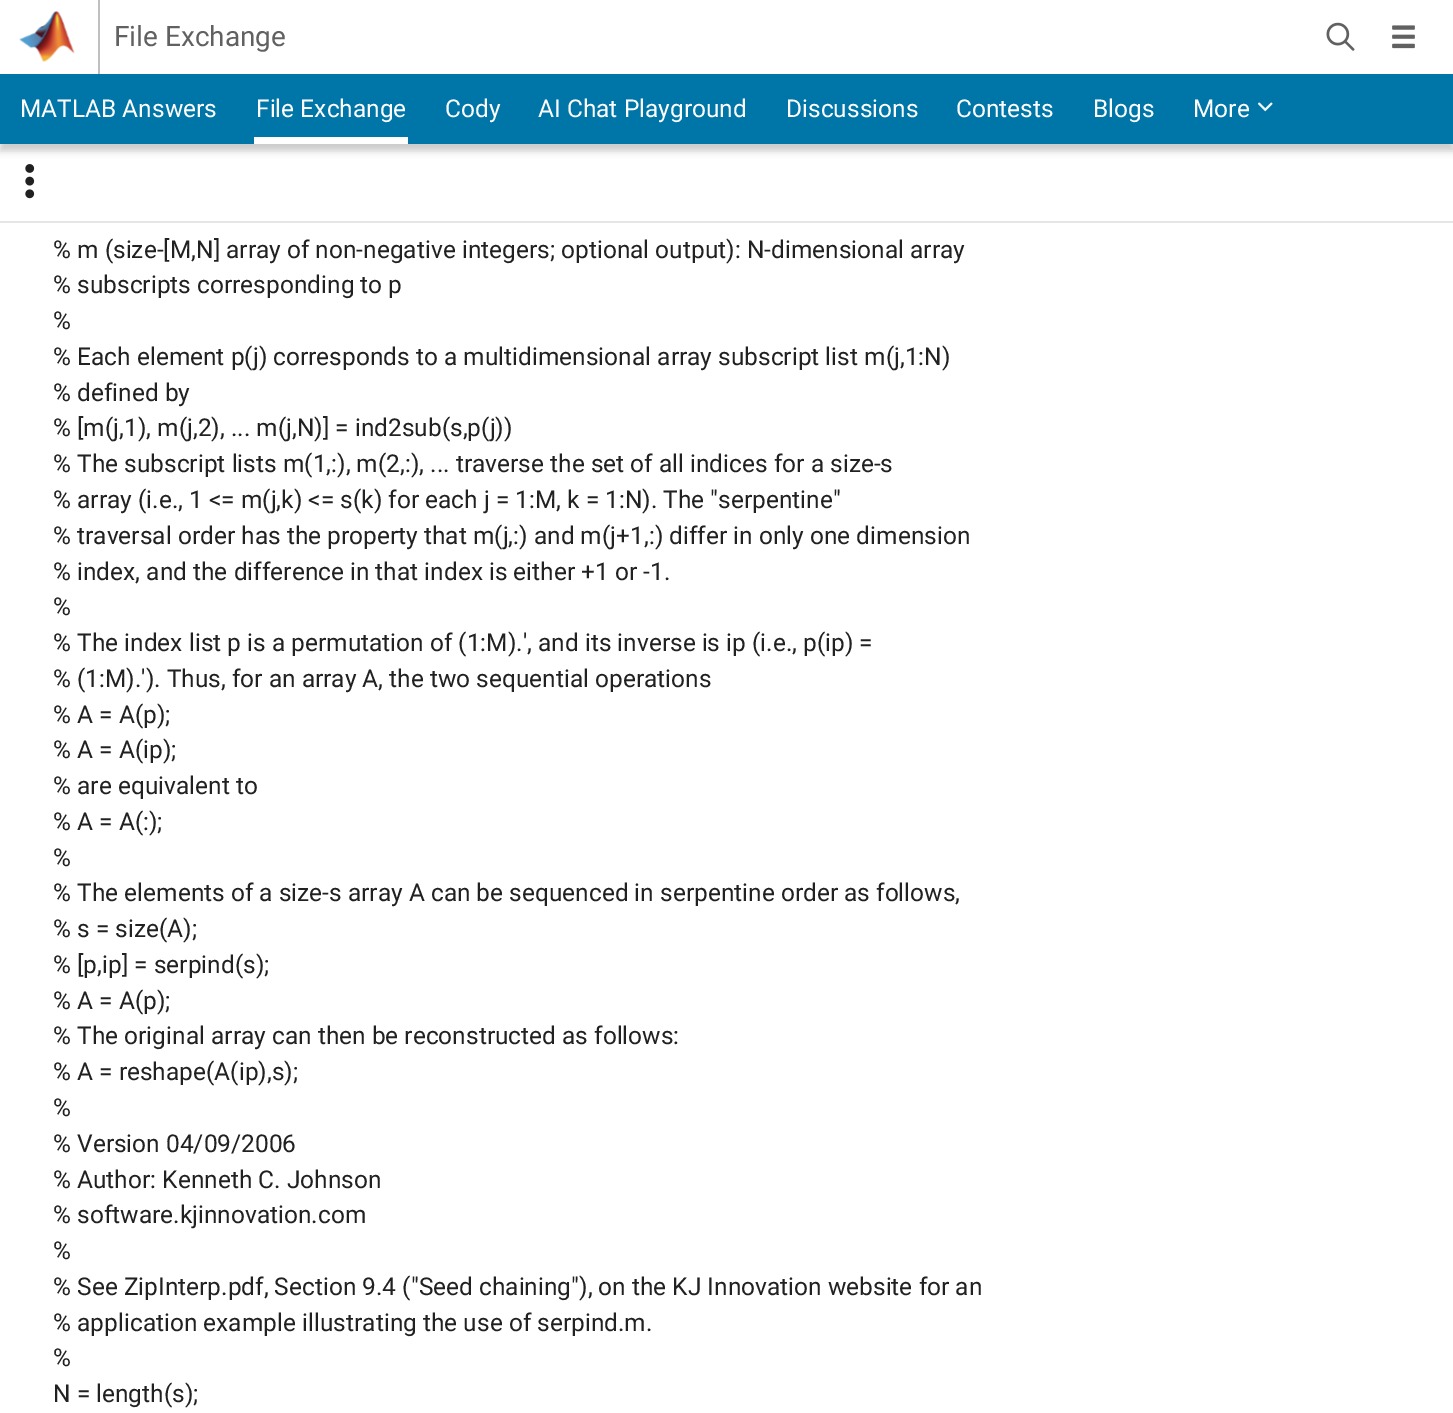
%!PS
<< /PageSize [1453 1413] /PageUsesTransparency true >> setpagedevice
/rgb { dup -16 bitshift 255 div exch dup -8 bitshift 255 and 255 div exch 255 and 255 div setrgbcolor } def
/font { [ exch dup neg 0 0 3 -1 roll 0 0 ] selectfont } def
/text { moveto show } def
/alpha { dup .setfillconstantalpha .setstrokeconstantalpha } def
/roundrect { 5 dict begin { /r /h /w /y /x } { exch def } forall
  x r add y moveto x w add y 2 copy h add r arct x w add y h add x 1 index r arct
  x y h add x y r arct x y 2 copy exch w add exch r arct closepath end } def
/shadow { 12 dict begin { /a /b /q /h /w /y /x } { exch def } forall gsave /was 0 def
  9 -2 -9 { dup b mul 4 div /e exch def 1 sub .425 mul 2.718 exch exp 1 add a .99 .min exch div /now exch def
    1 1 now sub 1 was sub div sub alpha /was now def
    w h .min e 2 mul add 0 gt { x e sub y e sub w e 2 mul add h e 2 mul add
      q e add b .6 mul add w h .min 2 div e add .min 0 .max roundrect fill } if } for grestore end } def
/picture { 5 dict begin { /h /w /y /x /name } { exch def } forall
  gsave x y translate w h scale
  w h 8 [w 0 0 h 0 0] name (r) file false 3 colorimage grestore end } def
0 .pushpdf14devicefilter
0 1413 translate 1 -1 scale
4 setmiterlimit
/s1 { /Roboto-Regular 28 font 16#616161 rgb } def
/s2 { /Roboto-Regular 24.5 font 16#FFFFFF rgb } def
/s3 { /Roboto-Regular 24.5 font 16#212121 rgb } def
16#FFFFFF rgb
0 0 1453 1413 rectfill
16#BFBFBF rgb
98 0 2 74 rectfill
(pic1.raw) 19 11 56 51 picture
s1
(File Exchange) 114 46 text
(pic2.raw) 1326 22 29 29 picture
(pic3.raw) 1392 25 23 24 picture
16#000000 rgb
0 81 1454 70 0 3.5 0.2 shadow
16#0076A8 rgb
0 74 1453 70 rectfill
s2
(MATLAB Answers) 20 117 text
254 137 154 7 rectfill
(File Exchange) 256 117 text
(Cody) 445 117 text
(AI Chat Playground) 538 117 text
(Discussions) 786 117 text
(Contests) 956 117 text
(Blogs) 1093 117 text
(More) 1193 117 text
(pic4.raw) 1258 102 15 10 picture
16#E6E6E6 rgb
0 221 1453 2 rectfill
(pic5.raw) 25 164 10 35 picture
s3
(% m \(size-[M,N] array of non-negative integers; optional output\): N-dimensional array) 53 258 text
(% subscripts corresponding to p) 53 293 text
(%) 53 329 text
(% Each element p\(j\) corresponds to a multidimensional array subscript list m\(j,1:N\)) 53 365 text
(% defined by) 53 401 text
(% [m\(j,1\), m\(j,2\), ... m\(j,N\)] = ind2sub\(s,p\(j\)\)) 53 436 text
(% The subscript lists m\(1,:\), m\(2,:\), ... traverse the set of all indices for a size-s) 53 472 text
(% array \(i.e., 1 <= m\(j,k\) <= s\(k\) for each j = 1:M, k = 1:N\). The "serpentine") 53 508 text
(% traversal order has the property that m\(j,:\) and m\(j+1,:\) differ in only one dimension) 53 544 text
(% index, and the difference in that index is either +1 or -1.) 53 580 text
(%) 53 615 text
(% The index list p is a permutation of \(1:M\).', and its inverse is ip \(i.e., p\(ip\) =) 53 651 text
(% \(1:M\).'\). Thus, for an array A, the two sequential operations) 53 687 text
(% A = A\(p\);) 53 723 text
(% A = A\(ip\);) 53 758 text
(% are equivalent to) 53 794 text
(% A = A\(:\);) 53 830 text
(%) 53 866 text
(% The elements of a size-s array A can be sequenced in serpentine order as follows,) 53 901 text
(% s = size\(A\);) 53 937 text
(% [p,ip] = serpind\(s\);) 53 973 text
(% A = A\(p\);) 53 1009 text
(% The original array can then be reconstructed as follows:) 53 1044 text
(% A = reshape\(A\(ip\),s\);) 53 1080 text
(%) 53 1116 text
(% Version 04/09/2006) 53 1152 text
(% Author: Kenneth C. Johnson) 53 1188 text
(% software.kjinnovation.com) 53 1223 text
(%) 53 1259 text
(% See ZipInterp.pdf, Section 9.4 \("Seed chaining"\), on the KJ Innovation website for an) 53 1295 text
(% application example illustrating the use of serpind.m.) 53 1331 text
(%) 53 1366 text
(N = length\(s\);) 53 1402 text
.poppdf14devicefilter showpage
